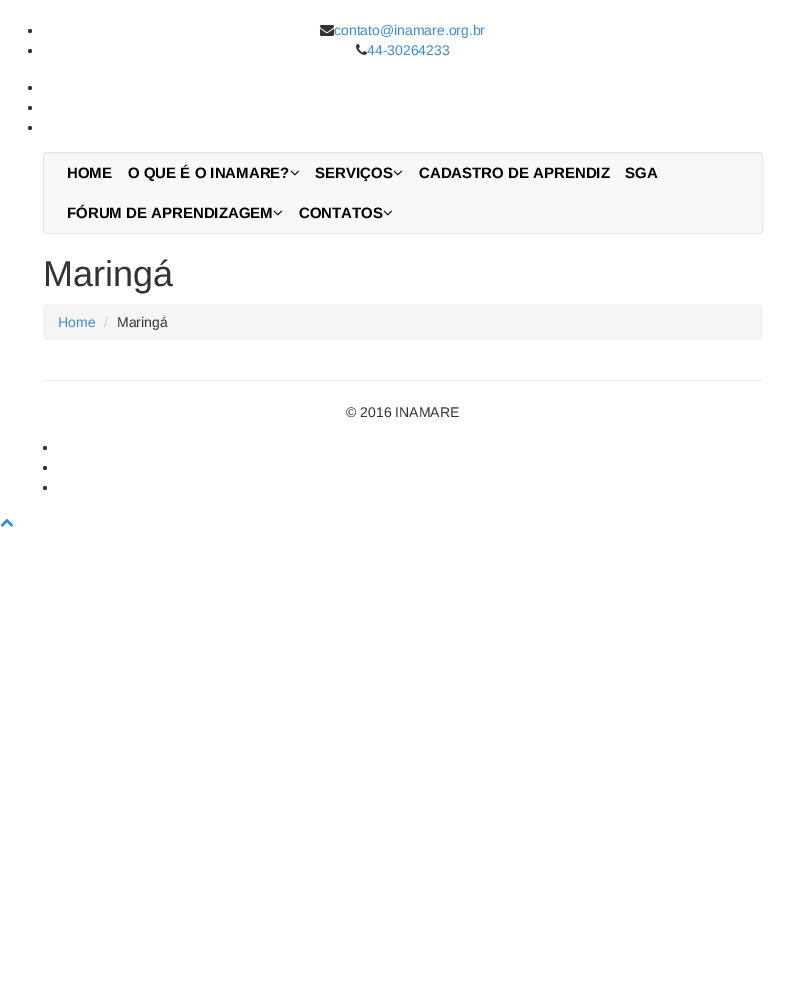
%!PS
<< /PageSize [806 985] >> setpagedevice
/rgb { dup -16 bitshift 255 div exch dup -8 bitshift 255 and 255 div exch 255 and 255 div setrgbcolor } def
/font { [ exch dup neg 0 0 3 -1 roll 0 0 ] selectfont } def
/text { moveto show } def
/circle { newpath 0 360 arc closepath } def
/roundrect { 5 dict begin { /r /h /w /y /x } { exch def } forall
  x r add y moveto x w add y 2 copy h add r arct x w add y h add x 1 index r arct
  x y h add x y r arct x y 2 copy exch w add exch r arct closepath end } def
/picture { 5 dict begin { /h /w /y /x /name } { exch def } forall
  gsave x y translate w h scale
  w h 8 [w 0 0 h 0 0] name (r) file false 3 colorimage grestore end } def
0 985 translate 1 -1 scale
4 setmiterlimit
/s1 { /LiberationSans-Regular 14 font 16#428BCA rgb } def
/s2 { /LiberationSans-Bold 15 font 16#000000 rgb } def
/s3 { /LiberationSans-Regular 36 font 16#333333 rgb } def
/s4 { /LiberationSans-Regular 14 font 16#CCCCCC rgb } def
/s5 { /LiberationSans-Regular 14 font 16#333333 rgb } def
16#FFFFFF rgb
0 0 806 985 rectfill
16#333333 rgb
30 31 2 circle fill
(pic1.raw) 320 25 14 11 picture
s1
(contato@inamare.org.br) 334 35 text
16#333333 rgb
30 51 2 circle fill
(pic2.raw) 356 44 11 11 picture
s1
(44-30264233) 367 55 text
16#333333 rgb
30 88 2 circle fill
30 108 2 circle fill
30 128 2 circle fill
16#F8F8F8 rgb
43.5 152.5 719 81 3.5 roundrect gsave fill grestore
16#E7E7E7 rgb
stroke
s2
(HOME) 67 178 text
(O QUE É O INAMARE?) 128 178 text
(pic3.raw) 290 170 9 6 picture
(SERVIÇOS) 315 178 text
(pic3.raw) 393 170 9 6 picture
(CADASTRO DE APRENDIZ) 419 178 text
(SGA) 625 178 text
(FÓRUM DE APRENDIZAGEM) 67 218 text
(pic3.raw) 273 210 9 6 picture
(CONTATOS) 299 218 text
(pic3.raw) 383 210 9 6 picture
s3
(Maringá) 43 286 text
16#F5F5F5 rgb
43 304 720 36 4 roundrect fill
s1
(Home) 58 327 text
s4
(/) 104 327 text
s5
(Maringá) 117 327 text
16#EEEEEE rgb
43 380 720 1 rectfill
s5
(© 2016 INAMARE) 346 417 text
45 448 2 circle fill
45 468 2 circle fill
45 488 2 circle fill
(pic4.raw) 0 518 14 9 picture
showpage
